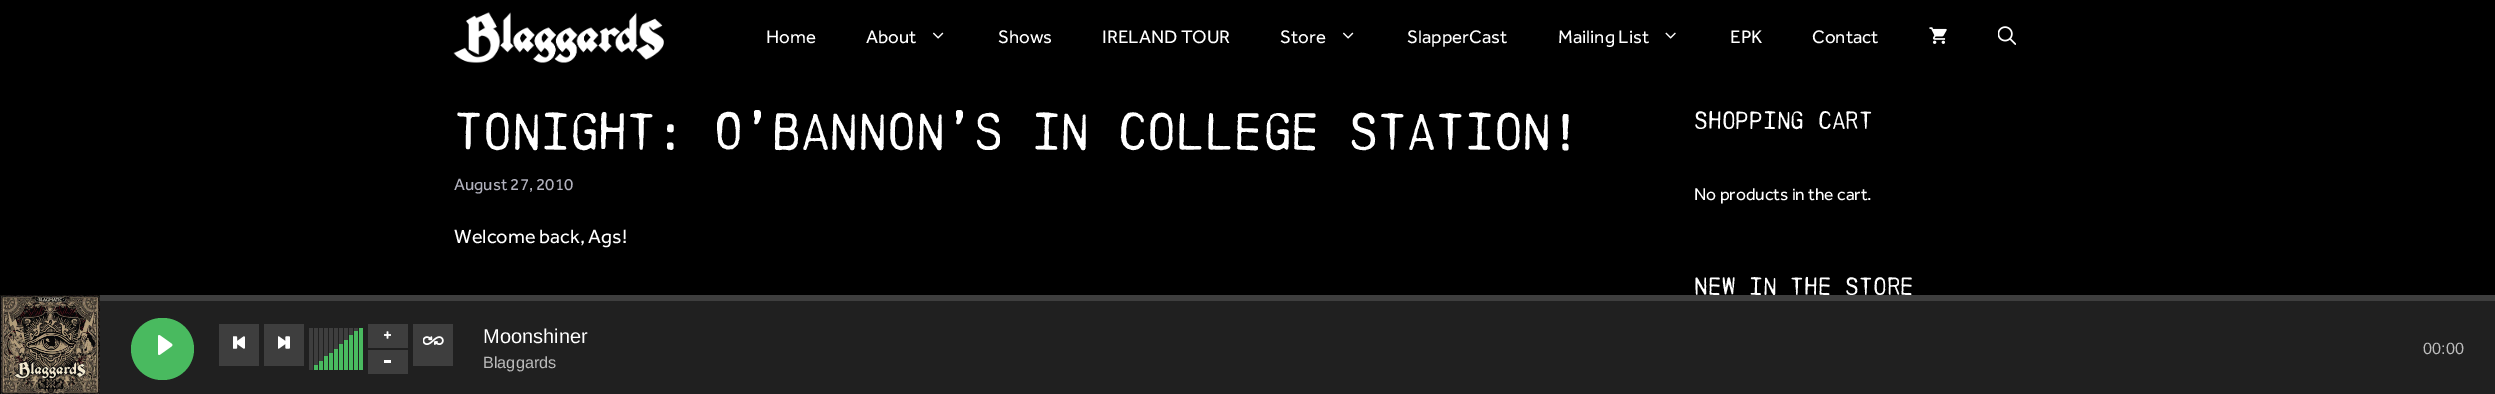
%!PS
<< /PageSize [2495 394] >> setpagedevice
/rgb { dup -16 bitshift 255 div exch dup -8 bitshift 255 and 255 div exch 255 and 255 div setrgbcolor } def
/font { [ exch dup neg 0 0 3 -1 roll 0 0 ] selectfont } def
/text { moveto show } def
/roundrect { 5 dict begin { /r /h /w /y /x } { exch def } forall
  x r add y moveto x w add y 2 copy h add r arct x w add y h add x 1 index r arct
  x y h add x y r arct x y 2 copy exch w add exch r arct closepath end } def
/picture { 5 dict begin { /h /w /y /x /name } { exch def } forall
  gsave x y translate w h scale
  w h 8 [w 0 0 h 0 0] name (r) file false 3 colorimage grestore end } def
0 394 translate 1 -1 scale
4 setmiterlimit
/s1 { /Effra-Regular 18.75 font 16#FFFFFF rgb } def
/s2 { /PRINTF-Regular 52.5 font 16#FFFFFF rgb } def
/s3 { /Effra-Regular 17 font 16#B2B2BE rgb } def
/s4 { /Effra-Regular 20 font 16#FFFFFF rgb } def
/s5 { /PRINTF-Regular 25 font 16#FFFFFF rgb } def
/s6 { /Effra-Regular 17.5 font 16#FFFFFF rgb } def
/s7 { /LiberationSans-Regular 20 font 16#FFFFFF rgb } def
/s8 { /LiberationSans-Regular 16.25 font 16#BCBCBC rgb } def
16#000000 rgb
0 0 2495 394 rectfill
(pic1.raw) 453 12 211 51 picture
s1
(Home) 766 43 text
(About) 866 43 text
(pic2.raw) 933 32 11 7 picture
(Shows) 998 43 text
(IRELAND TOUR) 1102 43 text
(Store) 1280 43 text
(pic2.raw) 1343 32 11 7 picture
(SlapperCast) 1407 43 text
(Mailing List) 1558 43 text
(pic3.raw) 1665 32 11 7 picture
(EPK) 1730 43 text
(Contact) 1812 43 text
(pic4.raw) 1929 27 18 17 picture
(pic5.raw) 1998 26 18 19 picture
s2
(Tonight: O’Bannon’s in College Station!) 454 150 text
s3
(August 27, 2010) 454 190 text
s4
(Welcome back, Ags!) 454 243 text
s5
(Shopping Cart) 1694 129 text
s6
(No products in the cart.) 1694 200 text
s5
(New in the Store) 1694 295 text
16#202020 rgb
100 301 2395 93 rectfill
(pic6.raw) 0 295 100 99 picture
16#3E3E3E rgb
100 295 2395 6 rectfill
16#49BA5F rgb
131 318 63 62 31 roundrect fill
(pic7.raw) 158 335 15 20 picture
16#3E3E3E rgb
219 324 40 42 rectfill
(pic8.raw) 233 336 12 13 picture
264 324 40 42 rectfill
(pic9.raw) 278 336 12 13 picture
309 328 4 42 rectfill
314 328 4 42 rectfill
16#49BA5F rgb
314 365 4 5 rectfill
16#3E3E3E rgb
319 328 4 33 rectfill
16#49BA5F rgb
319 361 4 9 rectfill
16#3E3E3E rgb
324 328 4 28 rectfill
16#49BA5F rgb
324 356 4 14 rectfill
16#3E3E3E rgb
329 328 4 25 rectfill
16#49BA5F rgb
329 353 4 17 rectfill
16#3E3E3E rgb
334 328 4 21 rectfill
16#49BA5F rgb
334 349 4 21 rectfill
16#3E3E3E rgb
339 328 4 16 rectfill
16#49BA5F rgb
339 344 4 26 rectfill
16#3E3E3E rgb
344 328 4 12 rectfill
16#49BA5F rgb
344 340 4 30 rectfill
16#3E3E3E rgb
349 328 4 7 rectfill
16#49BA5F rgb
349 335 4 35 rectfill
16#3E3E3E rgb
354 328 4 3 rectfill
16#49BA5F rgb
354 331 4 39 rectfill
359 328 4 42 rectfill
16#3E3E3E rgb
368 324 40 24 rectfill
(pic10.raw) 384 331 7 8 picture
368 350 40 24 rectfill
16#FFFFFF rgb
384 360 7 3 rectfill
16#3E3E3E rgb
413 324 40 42 rectfill
(pic11.raw) 423 336 21 9 picture
s7
(Moonshiner) 483 343 text
s8
(Blaggards) 483 368 text
(00:00) 2423 354 text
showpage
